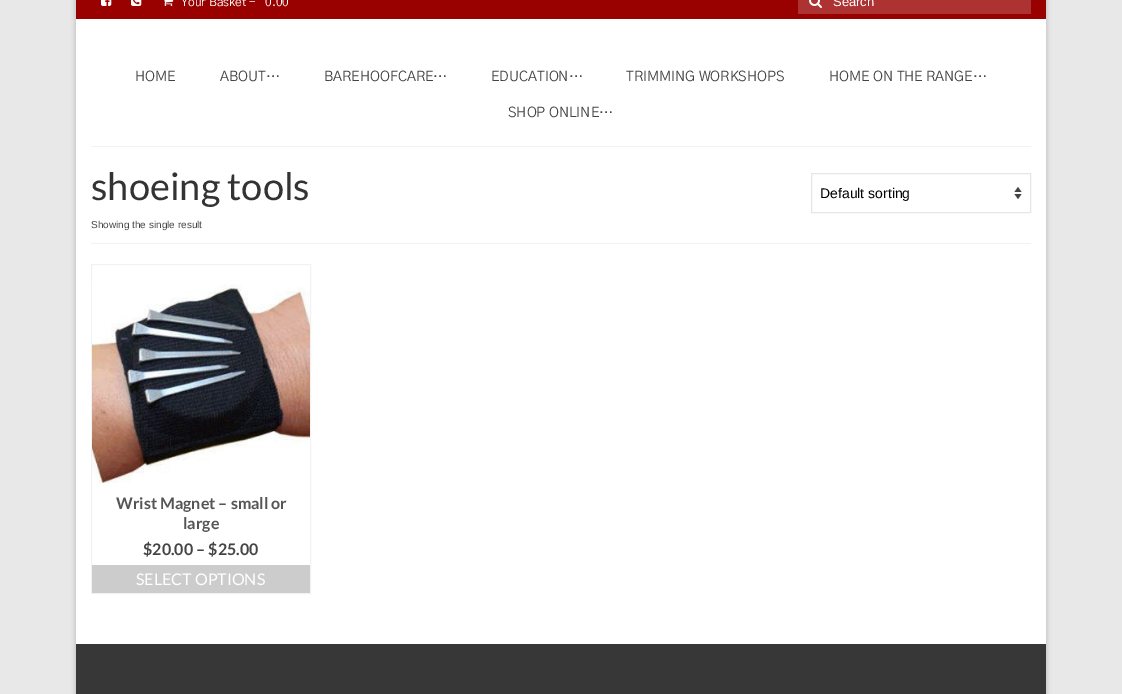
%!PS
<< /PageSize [1122 694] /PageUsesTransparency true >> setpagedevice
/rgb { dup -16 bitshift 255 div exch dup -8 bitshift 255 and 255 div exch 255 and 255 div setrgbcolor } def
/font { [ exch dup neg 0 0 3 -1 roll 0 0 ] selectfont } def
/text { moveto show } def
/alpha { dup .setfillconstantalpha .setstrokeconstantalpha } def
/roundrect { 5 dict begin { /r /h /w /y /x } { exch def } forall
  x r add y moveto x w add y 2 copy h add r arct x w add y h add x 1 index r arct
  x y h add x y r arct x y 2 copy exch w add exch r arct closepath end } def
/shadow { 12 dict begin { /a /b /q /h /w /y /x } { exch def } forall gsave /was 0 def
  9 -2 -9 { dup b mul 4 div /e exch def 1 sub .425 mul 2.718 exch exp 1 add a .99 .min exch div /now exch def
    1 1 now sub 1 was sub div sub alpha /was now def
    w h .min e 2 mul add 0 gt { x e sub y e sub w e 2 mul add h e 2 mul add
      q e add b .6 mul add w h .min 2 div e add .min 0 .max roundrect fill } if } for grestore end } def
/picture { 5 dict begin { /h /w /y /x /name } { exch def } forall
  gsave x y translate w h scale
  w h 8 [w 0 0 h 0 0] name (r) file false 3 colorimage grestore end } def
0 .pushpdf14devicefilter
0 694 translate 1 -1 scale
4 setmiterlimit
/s1 { /GothicA1-Regular 12 font 16#FFFFFF rgb } def
/s2 { /LiberationSans-Regular 13 font 16#FFFFFF rgb } def
/s3 { /GothicA1-Regular 14 font 16#444444 rgb } def
/s4 { /Lato-Regular 38 font 16#333333 rgb } def
/s5 { /LiberationSans-Regular 14 font 16#000000 rgb } def
/s6 { /LiberationSans-Regular 10 font 16#444444 rgb } def
/s7 { /Lato-Bold 16 font 16#555555 rgb } def
/s8 { /Lato-Bold 16 font 16#444444 rgb } def
/s9 { /Lato-Regular 16 font 16#FFFFFF rgb } def
16#E8E8E8 rgb
0 0 1122 694 rectfill
16#000000 rgb
75 -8 972 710 0 2.5 0.16 shadow
16#FFFFFF rgb
76 19 970 625 rectfill
16#990000 rgb
76 0 970 19 rectfill
(pic1.raw) 101 0 11 6 picture
(pic2.raw) 131 0 11 6 picture
(pic3.raw) 164 0 10 6 picture
s1
(Your Basket -) 181 6 text
(0.00) 265 6 text
16#AD3333 rgb
798 0 233 14 rectfill
(pic4.raw) 809 0 13 8 picture
s2
(Search) 833 6 text
s3
(HOME) 135 81 text
(ABOUT…) 220 81 text
(BAREHOOFCARE…) 324 81 text
(EDUCATION…) 491 81 text
(TRIMMING WORKSHOPS) 626 81 text
(HOME ON THE RANGE…) 829 81 text
(SHOP ONLINE…) 508 117 text
16#F2F2F2 rgb
91 146 940 1 rectfill
91 243 940 1 rectfill
s4
(shoeing tools) 91 200 text
16#444444 rgb
1014.5 192 moveto 1018 187 lineto 1021.5 192 lineto closepath 1021.5 194 moveto 1018 199 lineto 1014.5 194 lineto closepath fill
16#E6E6E6 rgb
811.5 173.5 219 39 rectstroke
s5
(Default sorting) 820 198 text
s6
(Showing the single result) 91 228 text
16#F2F2F2 rgb
91.5 264.5 219 329 rectstroke
(pic5.raw) 92 284 218 199 picture
s7
(Wrist Magnet – small or) 116 509 text
(large) 183 529 text
s8
($20.00 – $25.00) 143 555 text
16#CCCCCC rgb
92 565 218 28 rectfill
s9
(SELECT OPTIONS) 136 585 text
16#373737 rgb
76 644 970 50 rectfill
.poppdf14devicefilter showpage
